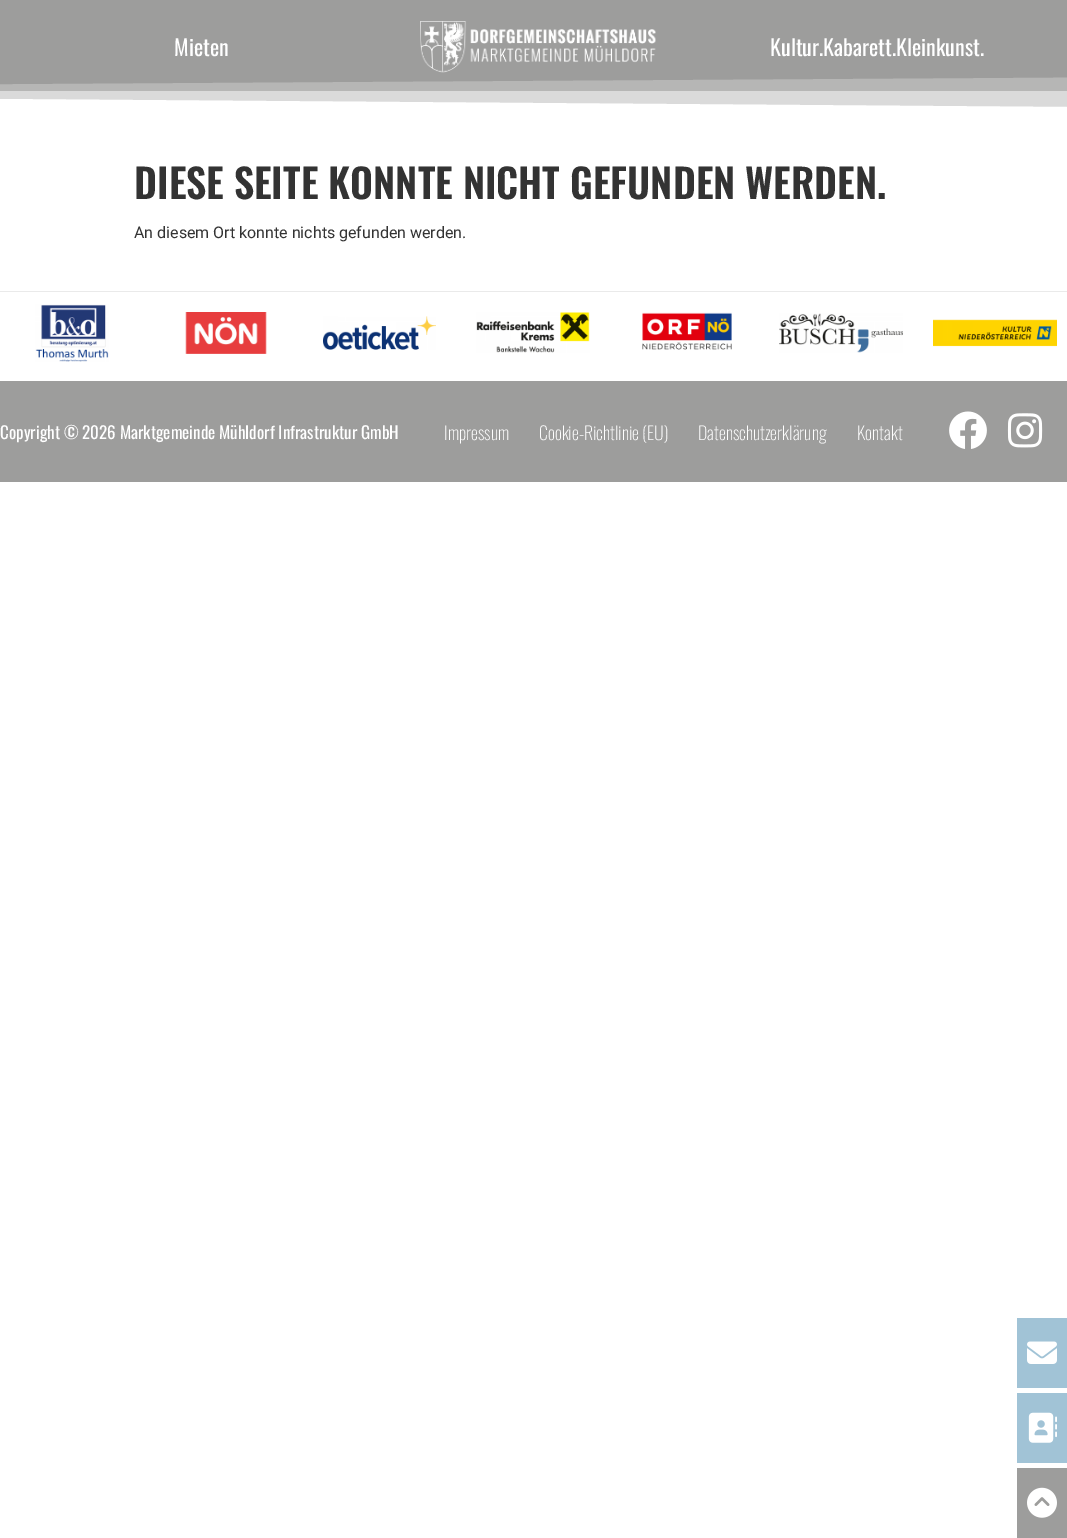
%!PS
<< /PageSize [1067 1538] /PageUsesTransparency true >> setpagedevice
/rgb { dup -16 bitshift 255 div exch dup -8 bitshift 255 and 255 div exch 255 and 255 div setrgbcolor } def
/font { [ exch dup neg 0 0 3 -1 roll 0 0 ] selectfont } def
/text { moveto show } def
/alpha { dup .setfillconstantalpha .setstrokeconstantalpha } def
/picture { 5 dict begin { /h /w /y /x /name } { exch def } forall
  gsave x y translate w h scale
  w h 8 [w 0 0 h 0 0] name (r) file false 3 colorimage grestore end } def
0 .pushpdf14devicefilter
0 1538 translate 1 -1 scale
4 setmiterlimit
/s1 { /Oswald-Regular 22 font 16#FFFFFF rgb } def
/s2 { /Oswald-SemiBold 40 font 16#333333 rgb } def
/s3 { /Roboto-Regular 16 font 16#333333 rgb } def
/s4 { /Oswald-Regular 17 font 16#FFFFFF rgb } def
/s5 { /Oswald-ExtraLight 18 font 16#FFFFFF rgb } def
16#FFFFFF rgb
0 0 1067 1538 rectfill
16#9D9D9C rgb
0 0 1067 91 rectfill
16#CECECE rgb
0 91 1067 16 rectfill
s1
(Mieten) 174 56 text
(pic1.raw) 420 21 236 52 picture
(Kultur.Kabarett.Kleinkunst.) 770 56 text
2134 115 moveto -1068 115 lineto -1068 91 lineto closepath fill
0.25 alpha
-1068 115 moveto 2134 115 lineto 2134 71 lineto -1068 91 lineto closepath fill
1 alpha
s2
(DIESE SEITE KONNTE NICHT GEFUNDEN WERDEN.) 134 199 text
s3
(An diesem Ort konnte nichts gefunden werden.) 134 238 text
16#EAEAEA rgb
0 291 1067 1 rectfill
(pic2.raw) 35 304 74 58 picture
(pic3.raw) 185 312 82 42 picture
(pic4.raw) 323 316 113 34 picture
(pic5.raw) 476 312 114 41 picture
(pic6.raw) 642 312 90 38 picture
(pic7.raw) 779 313 124 40 picture
(pic8.raw) 933 319 124 28 picture
16#9D9D9C rgb
0 381 1067 101 rectfill
s4
(Copyright © 2026 Marktgemeinde Mühldorf Infrastruktur GmbH) 0 439 text
s5
(Impressum) 444 440 text
(Cookie-Richtlinie \(EU\)) 539 440 text
(Datenschutzerklärung) 698 440 text
(Kontakt) 857 440 text
(pic9.raw) 949 411 38 38 picture
(pic10.raw) 1007 413 36 35 picture
16#A1C3D6 rgb
1017 1318 50 70 rectfill
(pic11.raw) 1027 1341 30 23 picture
1017 1393 50 70 rectfill
(pic12.raw) 1028 1412 29 31 picture
16#9D9D9C rgb
1017 1468 50 70 rectfill
(pic13.raw) 1027 1487 30 31 picture
.poppdf14devicefilter showpage
